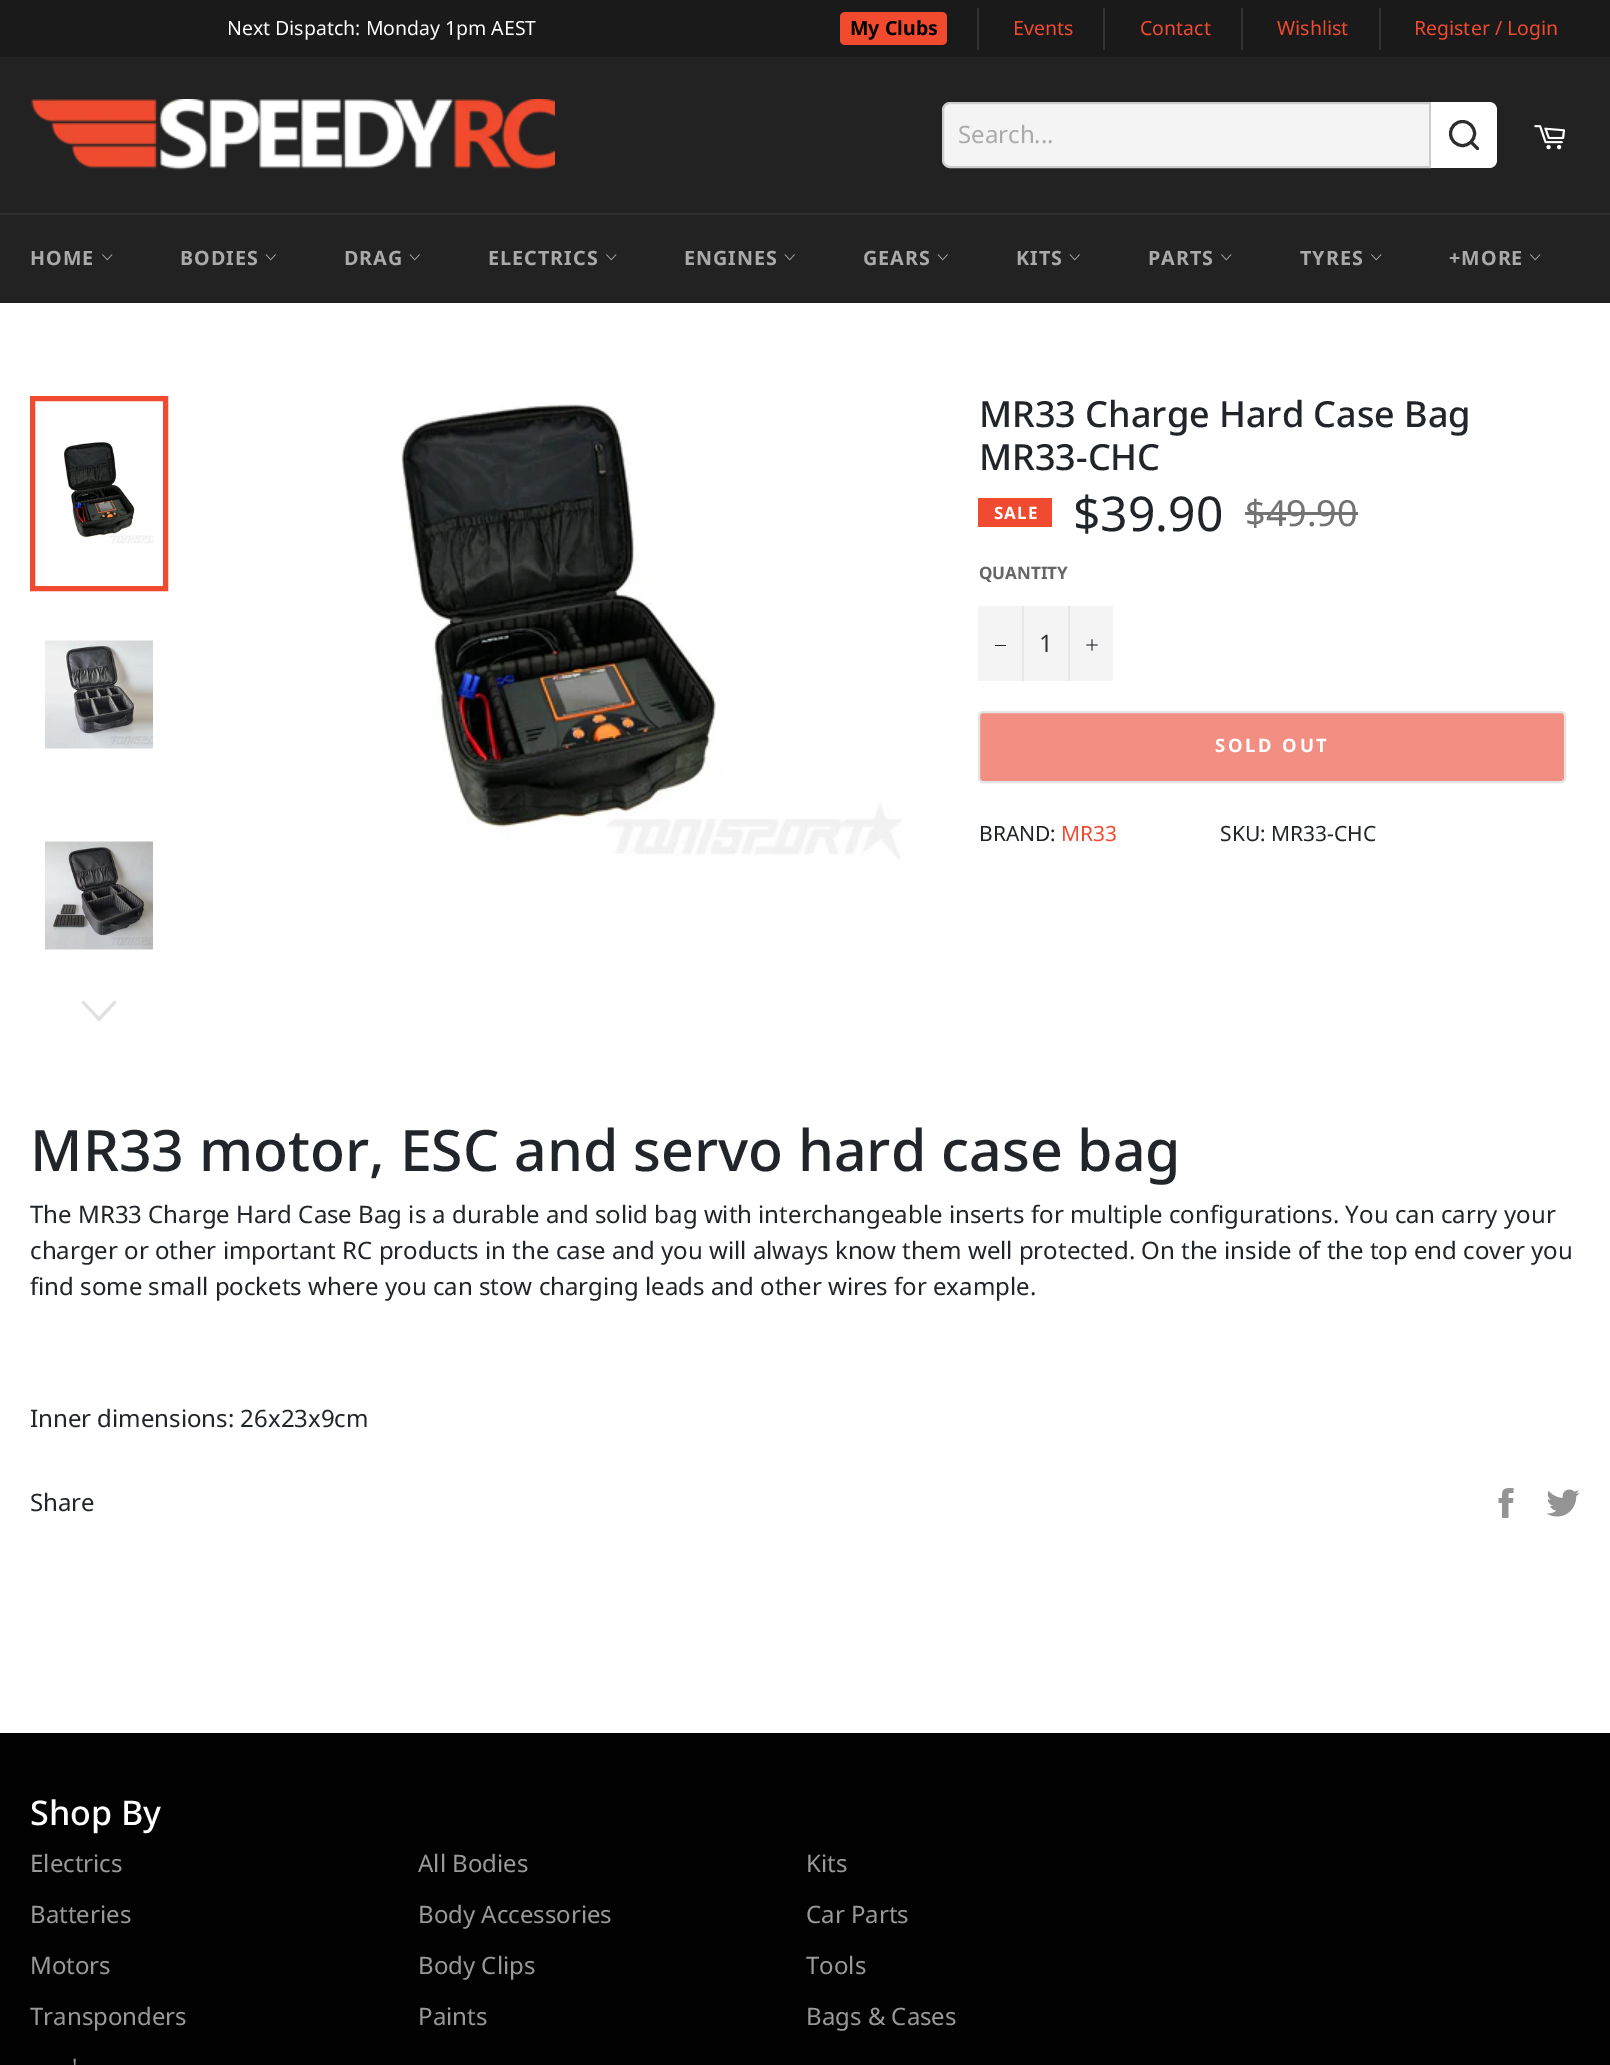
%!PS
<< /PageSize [1610 2065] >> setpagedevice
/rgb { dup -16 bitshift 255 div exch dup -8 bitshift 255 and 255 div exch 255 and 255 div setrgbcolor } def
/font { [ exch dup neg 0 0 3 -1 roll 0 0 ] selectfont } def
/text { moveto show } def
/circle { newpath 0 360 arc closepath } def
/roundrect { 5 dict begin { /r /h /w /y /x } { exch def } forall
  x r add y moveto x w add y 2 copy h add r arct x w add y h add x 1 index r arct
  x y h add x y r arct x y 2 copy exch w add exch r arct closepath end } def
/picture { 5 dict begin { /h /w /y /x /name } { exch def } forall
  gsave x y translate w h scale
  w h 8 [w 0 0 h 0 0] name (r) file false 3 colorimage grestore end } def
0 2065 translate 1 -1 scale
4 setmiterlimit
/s1 { /NotoSans-Regular 19.5 font 16#FFFFFF rgb } def
/s2 { /NotoSans-Bold 19.5 font 16#000000 rgb } def
/s3 { /NotoSans-Regular 19.5 font 16#F04B30 rgb } def
/s4 { /NotoSans-Regular 24 font 16#AAAAAA rgb } def
/s5 { /NotoSans-Medium 36 font 16#212529 rgb } def
/s6 { /NotoSans-Regular 48 font 16#212529 rgb } def
/s7 { /NotoSans-Regular 36 font 16#737373 rgb } def
/s8 { /NotoSans-Bold 17 font 16#666666 rgb } def
/s9 { /NotoSans-Regular 24 font 16#333333 rgb } def
/s10 { /NotoSans-Regular 21 font 16#212529 rgb } def
/s11 { /NotoSans-Regular 21 font 16#F04B30 rgb } def
/s12 { /NotoSans-Medium 57.2 font 16#212529 rgb } def
/s13 { /NotoSans-Regular 24 font 16#212529 rgb } def
/s14 { /NotoSans-Medium 34 font 16#FFFFFF rgb } def
/s15 { /NotoSans-Regular 24 font 16#999999 rgb } def
16#222222 rgb
0 0 1610 2065 rectfill
16#1A1A1A rgb
0 0 1610 57 rectfill
s1
(Next Dispatch: Monday 1pm AEST) 227 35 text
16#333333 rgb
977 8 2 42 rectfill
16#F14A2F rgb
840 12 107 33 5 roundrect fill
s2
(My Clubs) 850 35 text
16#333333 rgb
1103 8 2 42 rectfill
s3
(Events) 1013 35 text
16#333333 rgb
1241 8 2 42 rectfill
s3
(Contact) 1140 35 text
16#333333 rgb
1379 8 2 42 rectfill
s3
(Wishlist) 1277 35 text
(Register / Login) 1414 35 text
(pic1.raw) 31 99 524 71 picture
16#F4F4F4 rgb
950 103 moveto 1430 103 lineto 1430 167 lineto 950 167 lineto 946 167 943 164 943 160 curveto 943 110 lineto 943 106 946 103 950 103 curveto closepath gsave fill grestore
16#CCCCCC rgb
2 setlinewidth
stroke
s4
(Search...) 958 143 text
16#FFFFFF rgb
1431 102 moveto 1489 102 lineto 1493.5 102 1497 105.5 1497 110 curveto 1497 160 lineto 1497 164.5 1493.5 168 1489 168 curveto 1431 168 lineto closepath fill
16#2D2D2D rgb
3 setlinewidth
1462.5 133.5 12 circle stroke
1 setlinecap
1 setlinejoin
1477.5 148.5 moveto 1471 142 lineto stroke
(pic2.raw) 1534 125 31 25 picture
16#2F2F2F rgb
0 213 1610 2 rectfill
/NotoSans-Bold 19.75 font
16#AAAAAA rgb
30 265 moveto 1 0 (HOME) ashow
(pic3.raw) 102 254 11 7 picture
180 265 moveto 1 0 (BODIES) ashow
(pic4.raw) 265 254 11 7 picture
344 265 moveto 1 0 (DRAG) ashow
(pic4.raw) 409 254 11 7 picture
488 265 moveto 1 0 (ELECTRICS) ashow
(pic3.raw) 606 254 11 7 picture
684 265 moveto 1 0 (ENGINES) ashow
(pic4.raw) 784 254 11 7 picture
863 265 moveto 1 0 (GEARS) ashow
(pic4.raw) 937 254 11 7 picture
1016 265 moveto 1 0 (KITS) ashow
(pic4.raw) 1069 254 11 7 picture
1148 265 moveto 1 0 (PARTS) ashow
(pic3.raw) 1221 254 11 7 picture
1300 265 moveto 1 0 (TYRES) ashow
(pic3.raw) 1371 254 11 7 picture
1449 265 moveto 1 0 (+MORE) ashow
(pic3.raw) 1530 254 11 7 picture
16#FFFFFF rgb
0 303 1610 1430 rectfill
(pic5.raw) 64 442 89 102 picture
16#F04B30 rgb
5 setlinewidth
0 setlinecap
0 setlinejoin
32.5 398.5 133 190 rectstroke
(pic6.raw) 45 640 108 109 picture
(pic7.raw) 45 841 108 109 picture
16#E0E0E0 rgb
114.5 1000.5 moveto 116.5 1002.5 lineto 99 1021.5 lineto 81.5 1002.5 lineto 83.5 1000.5 lineto 99 1017 lineto closepath fill
(pic8.raw) 401 404 502 456 picture
s5
(MR33 Charge Hard Case Bag) 979 427 text
(MR33-CHC) 979 470 text
16#F04B30 rgb
978 498 74 29 rectfill
/NotoSans-Bold 17 font
16#FFFFFF rgb
994 519 moveto 1 0 (SALE) ashow
s6
($39.90) 1073 531 text
s7
($49.90) 1245 526 text
1245 512 113 3 rectfill
s8
(QUANTITY) 979 579 text
16#F4F4F4 rgb
978 606 135 75 rectfill
16#E7E7E7 rgb
1022 606 2 75 rectfill
16#212529 rgb
995 645 11 1 rectfill
s9
(1) 1039 652 text
16#E7E7E7 rgb
1068 606 2 75 rectfill
(pic9.raw) 1086 639 12 12 picture
16#F38F82 rgb
979 712 586 70 4 roundrect gsave fill grestore
16#E4E4E4 rgb
2 setlinewidth
stroke
/NotoSans-Bold 18.5 font
16#FFFFFF rgb
1215 752 moveto 2.75 0 (SOLD OUT) ashow
s10
(BRAND:) 979 841 text
s11
(MR33) 1061 841 text
s10
(SKU: MR33-CHC) 1220 841 text
s12
(MR33 motor, ESC and servo hard case bag) 30 1171 text
s13
(The MR33 Charge Hard Case Bag is a durable and solid bag with interchangeable inserts for multiple configurations. You can carry your) 30 1223 text
(charger or other important RC products in the case and you will always know them well protected. On the inside of the top end cover you) 30 1259 text
(find some small pockets where you can stow charging leads and other wires for example.) 30 1295 text
(Inner dimensions: 26x23x9cm) 30 1427 text
(Share) 30 1511 text
(pic10.raw) 1498 1488 16 30 picture
(pic11.raw) 1546 1489 34 28 picture
16#010101 rgb
0 1733 1610 332 rectfill
s14
(Shop By) 30 1825 text
s15
(Electrics) 30 1872 text
(Batteries) 30 1923 text
(Motors) 30 1974 text
(Transponders) 30 2025 text
(') 72 2076 text
(All Bodies) 418 1872 text
(Body Accessories) 418 1923 text
(Body Clips) 418 1974 text
(Paints) 418 2025 text
(Kits) 806 1872 text
(Car Parts) 806 1923 text
(Tools) 806 1974 text
(Bags & Cases) 806 2025 text
showpage
